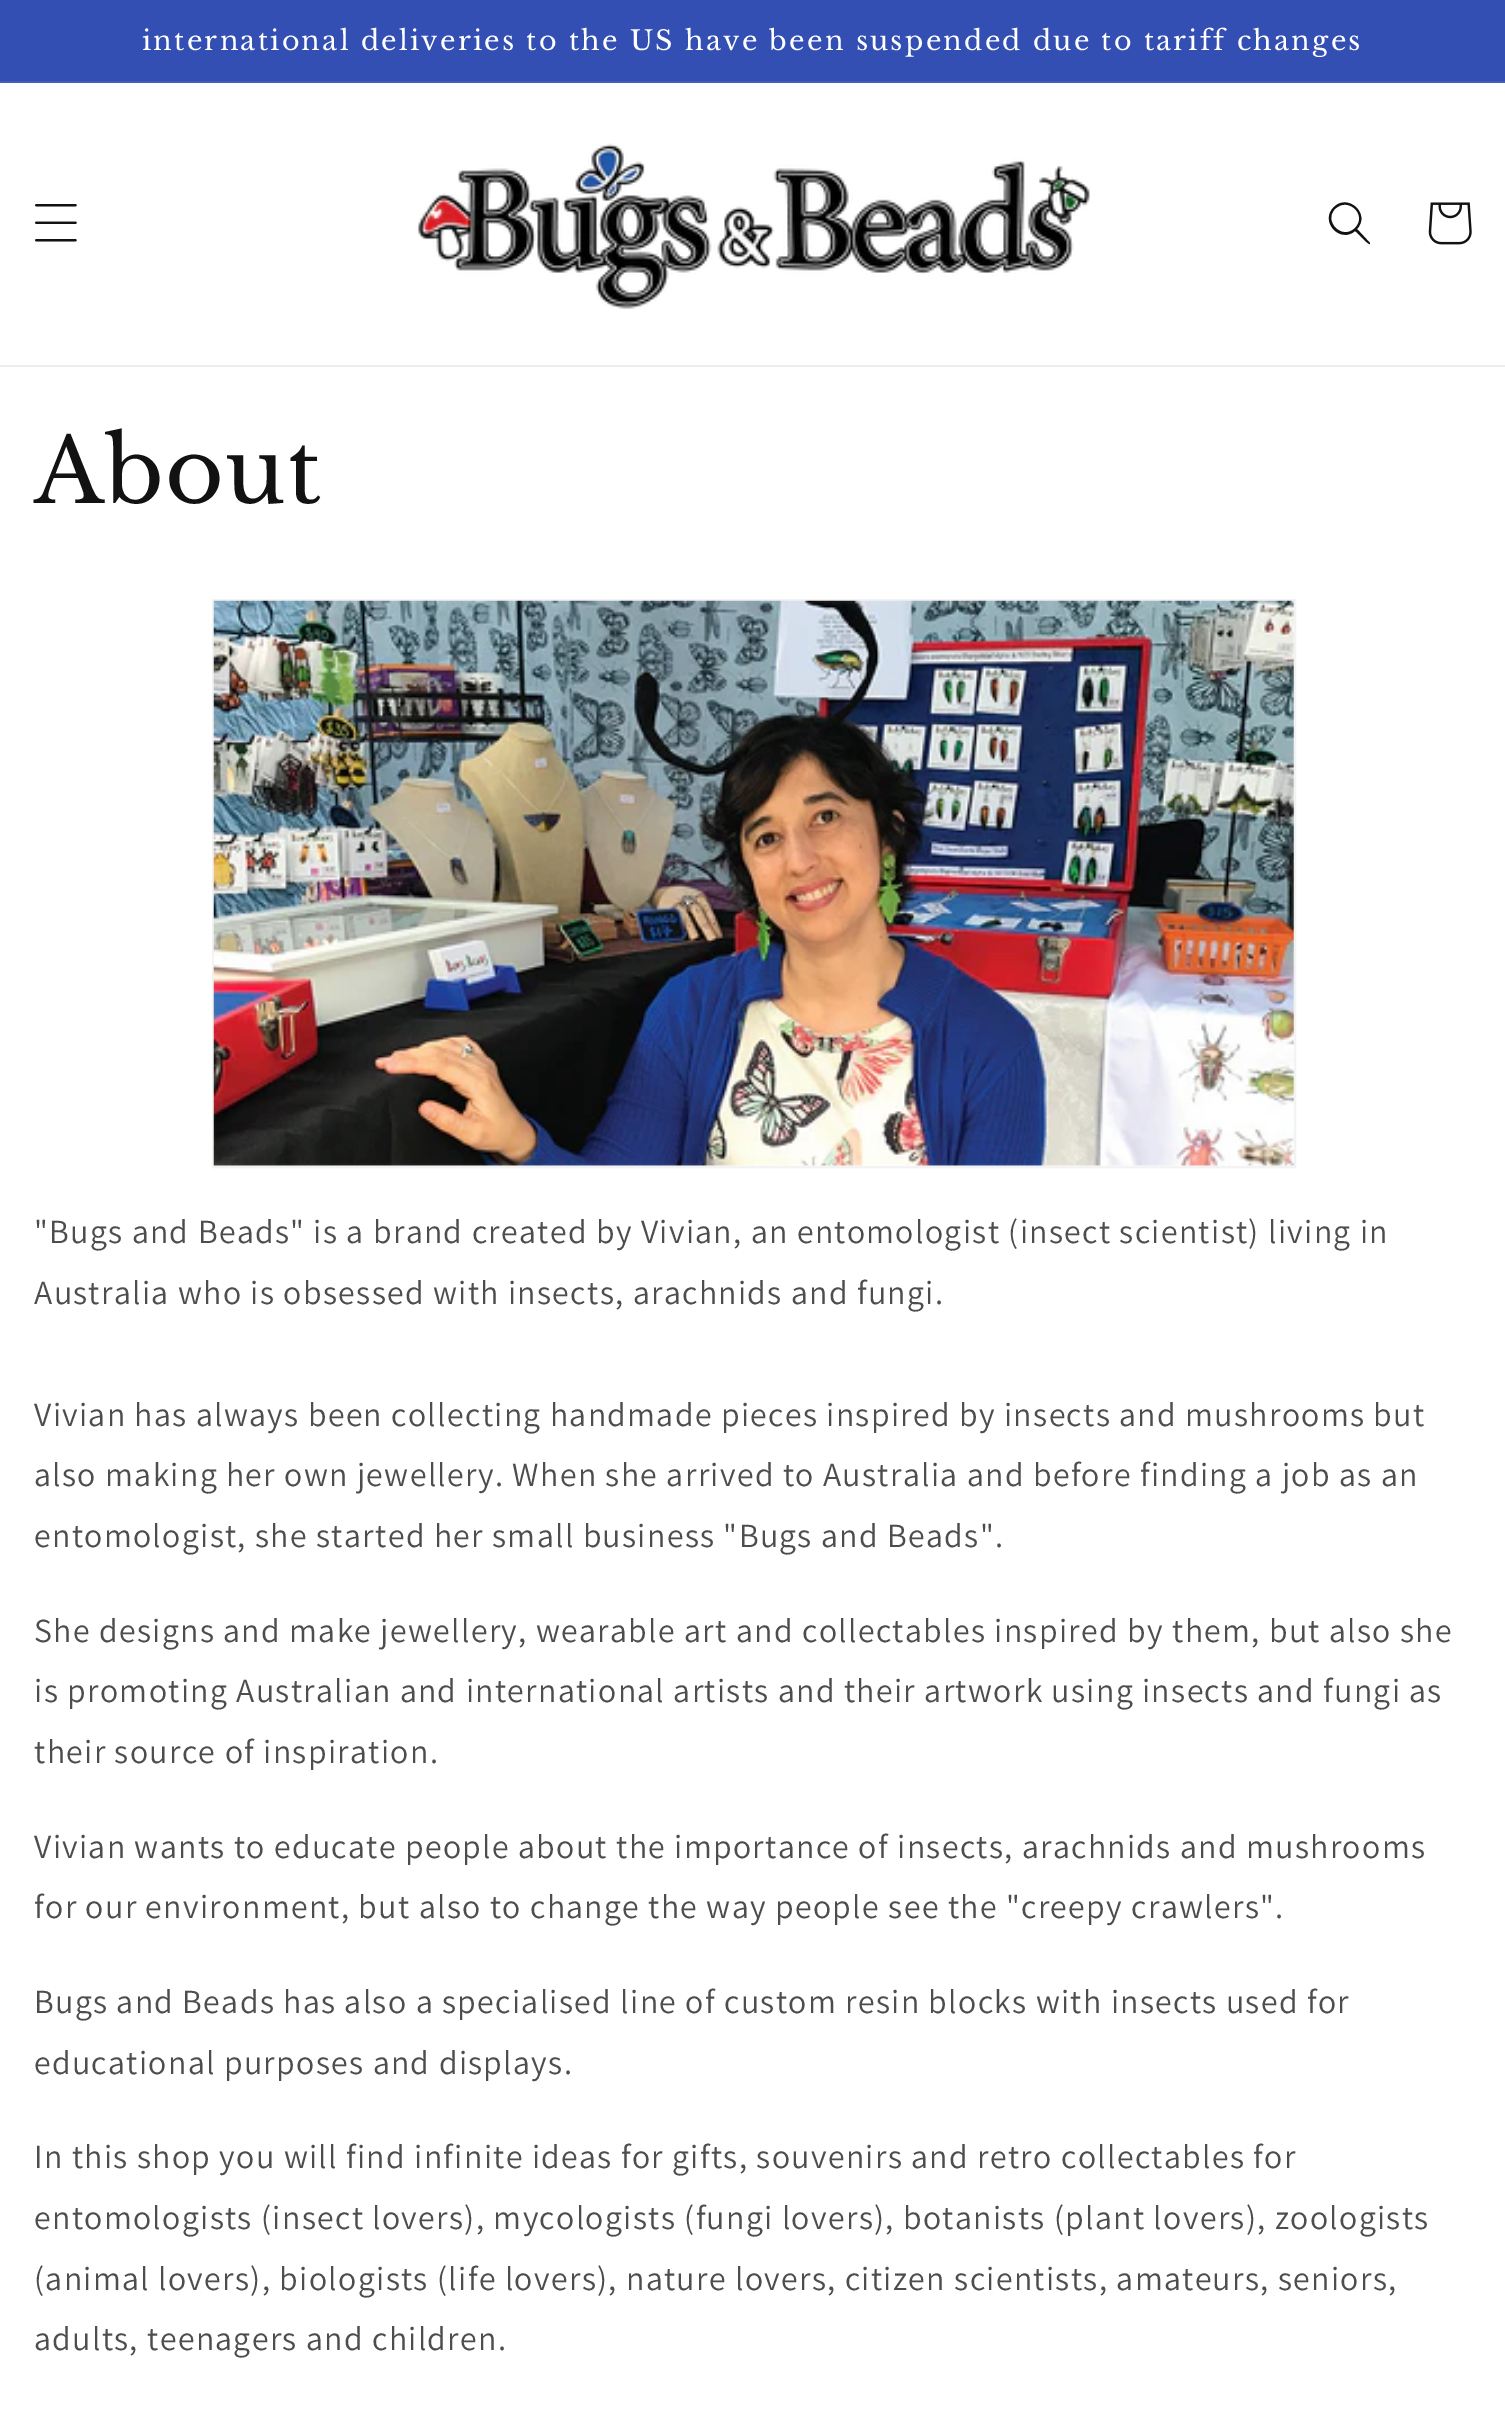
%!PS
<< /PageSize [1505 2428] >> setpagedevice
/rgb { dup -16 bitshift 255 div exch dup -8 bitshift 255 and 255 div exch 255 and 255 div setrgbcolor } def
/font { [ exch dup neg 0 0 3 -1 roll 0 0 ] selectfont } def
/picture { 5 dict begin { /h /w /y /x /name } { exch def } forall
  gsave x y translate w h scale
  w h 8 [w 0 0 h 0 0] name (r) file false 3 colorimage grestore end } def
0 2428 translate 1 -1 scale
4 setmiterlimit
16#FFFFFF rgb
0 0 1505 2428 rectfill
16#334FB4 rgb
0 0 1505 81 rectfill
16#435DBA rgb
0 81 1505 2 rectfill
/LibreBaskerville-Regular 27 font
16#FFFFFF rgb
142 50 moveto 2.25 0 (international deliveries to the US have been suspended due to tariff changes) ashow
16#ECECEC rgb
0 365 1505 2 rectfill
(pic1.raw) 35 204 42 38 picture
(pic2.raw) 418 143 672 166 picture
16#121212 rgb
1355 228 moveto 1342 241 1323 221 1335 209 curveto 1348 196 1368 215 1355 228 curveto closepath 1355 231 moveto 1340 244 1319 221 1334 207 curveto 1348 193 1371 214 1357 229 curveto 1370 243 lineto 1370 244 lineto 1368 245 1357 232 1355 231 curveto closepath eofill
(pic3.raw) 1428 202 44 43 picture
/LibreBaskerville-Regular 90 font
34 503 moveto 1.35 0 (About) ashow
16#F3F3F3 rgb
2 setlinewidth
213 600 1082 567 rectstroke
(pic4.raw) 213 600 1081 566 picture
/Assistant-Regular 33.75 font
16#4D4D4D rgb
34 1243 moveto 1.35 0 ("Bugs and Beads" is a brand created by Vivian, an entomologist \(insect scientist\) living in) ashow
34 1304 moveto 1.35 0 (Australia who is obsessed with insects, arachnids and fungi.) ashow
34 1426 moveto 1.35 0 (Vivian has always been collecting handmade pieces inspired by insects and mushrooms but) ashow
34 1486 moveto 1.35 0 (also making her own jewellery. When she arrived to Australia and before finding a job as an) ashow
34 1547 moveto 1.35 0 (entomologist, she started her small business "Bugs and Beads".) ashow
34 1642 moveto 1.35 0 (She designs and make jewellery, wearable art and collectables inspired by them, but also she) ashow
34 1702 moveto 1.35 0 (is promoting Australian and international artists and their artwork using insects and fungi as) ashow
34 1763 moveto 1.35 0 (their source of inspiration.) ashow
34 1858 moveto 1.35 0 (Vivian wants to educate people about the importance of insects, arachnids and mushrooms) ashow
34 1918 moveto 1.35 0 (for our environment, but also to change the way people see the "creepy crawlers".) ashow
34 2013 moveto 1.35 0 (Bugs and Beads has also a specialised line of custom resin blocks with insects used for) ashow
34 2074 moveto 1.35 0 (educational purposes and displays.) ashow
34 2168 moveto 1.35 0 (In this shop you will find infinite ideas for gifts, souvenirs and retro collectables for) ashow
34 2229 moveto 1.35 0 (entomologists \(insect lovers\), mycologists \(fungi lovers\), botanists \(plant lovers\), zoologists) ashow
34 2290 moveto 1.35 0 (\(animal lovers\), biologists \(life lovers\), nature lovers, citizen scientists, amateurs, seniors,) ashow
34 2350 moveto 1.35 0 (adults, teenagers and children.) ashow
showpage
